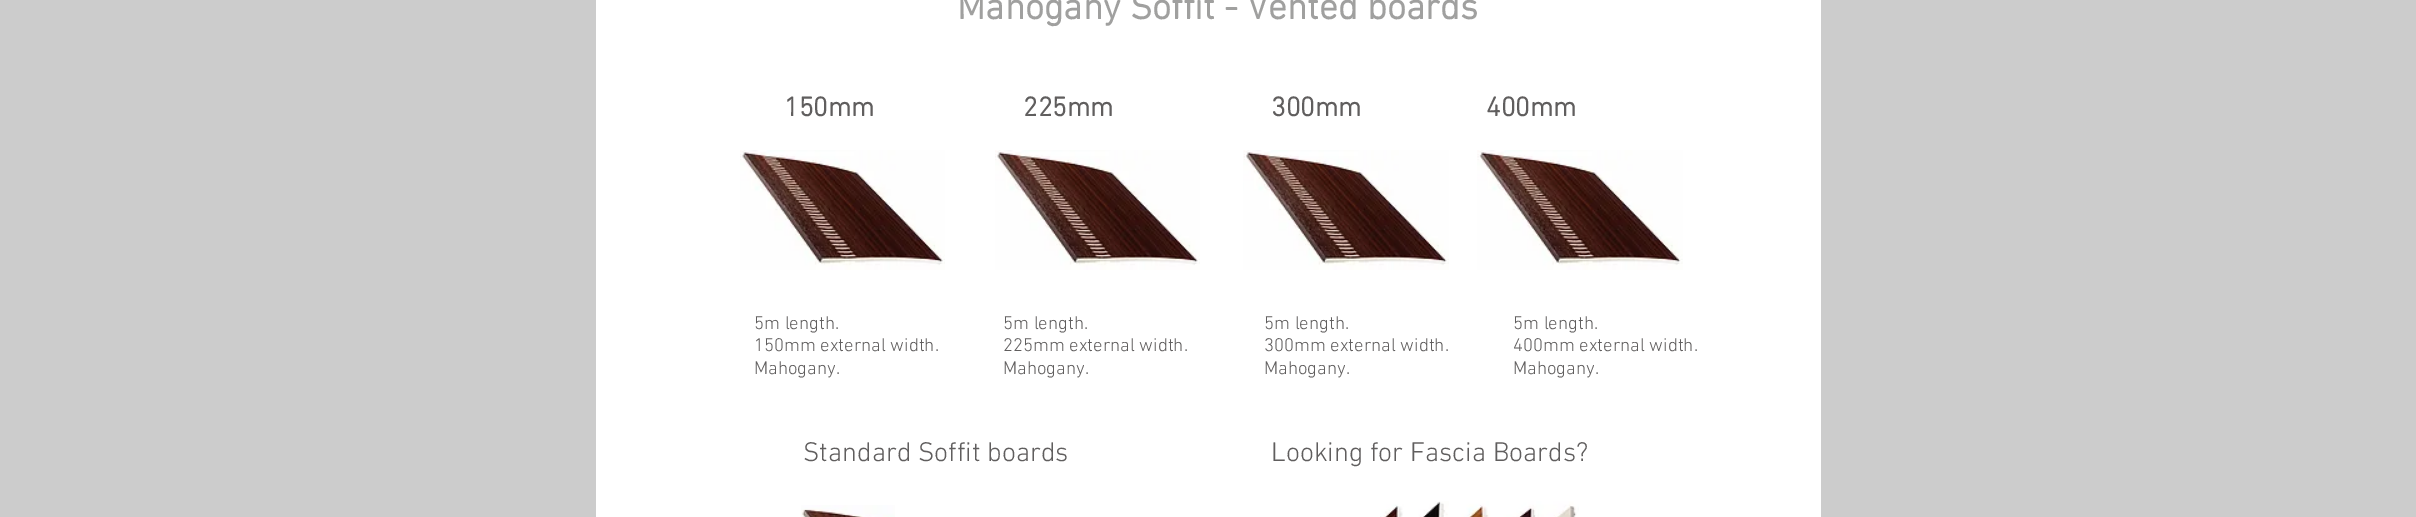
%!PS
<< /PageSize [2416 517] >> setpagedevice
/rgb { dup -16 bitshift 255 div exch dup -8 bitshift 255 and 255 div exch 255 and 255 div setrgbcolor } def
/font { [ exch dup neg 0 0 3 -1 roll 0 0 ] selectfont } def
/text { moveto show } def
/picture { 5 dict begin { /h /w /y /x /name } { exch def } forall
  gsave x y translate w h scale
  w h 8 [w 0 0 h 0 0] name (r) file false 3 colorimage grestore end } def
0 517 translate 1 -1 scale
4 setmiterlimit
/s1 { /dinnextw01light-Bold 37.5 font 16#A0A09F rgb } def
/s2 { /dinnextw01light-Bold 27.5 font 16#605E5E rgb } def
/s3 { /dinnextw01light-Light 18.75 font 16#605E5E rgb } def
/s4 { /dinnextw01light-Light 27.5 font 16#605E5E rgb } def
16#CCCCCC rgb
0 0 2416 517 rectfill
16#FFFFFF rgb
596 0 1225 517 rectfill
s1
(Mahogany Soffit - Vented boards) 957 19 text
s2
(150mm) 784 116 text
(225mm) 1023 116 text
(300mm) 1271 116 text
(400mm) 1486 116 text
(pic1.raw) 740 150 205 120 picture
(pic2.raw) 995 150 205 120 picture
(pic3.raw) 1243 150 206 120 picture
(pic4.raw) 1477 150 206 120 picture
s3
(5m length.) 754 329 text
(150mm external width.) 754 351 text
(Mahogany.) 754 374 text
(5m length.) 1003 329 text
(225mm external width.) 1003 351 text
(Mahogany.) 1003 374 text
(5m length.) 1264 329 text
(300mm external width.) 1264 351 text
(Mahogany.) 1264 374 text
(5m length.) 1513 329 text
(400mm external width.) 1513 351 text
(Mahogany.) 1513 374 text
s4
(Standard Soffit boards) 803 461 text
(Looking for Fascia Boards?) 1271 461 text
(pic5.raw) 801 505 94 12 picture
(pic6.raw) 1380 501 199 16 picture
showpage
